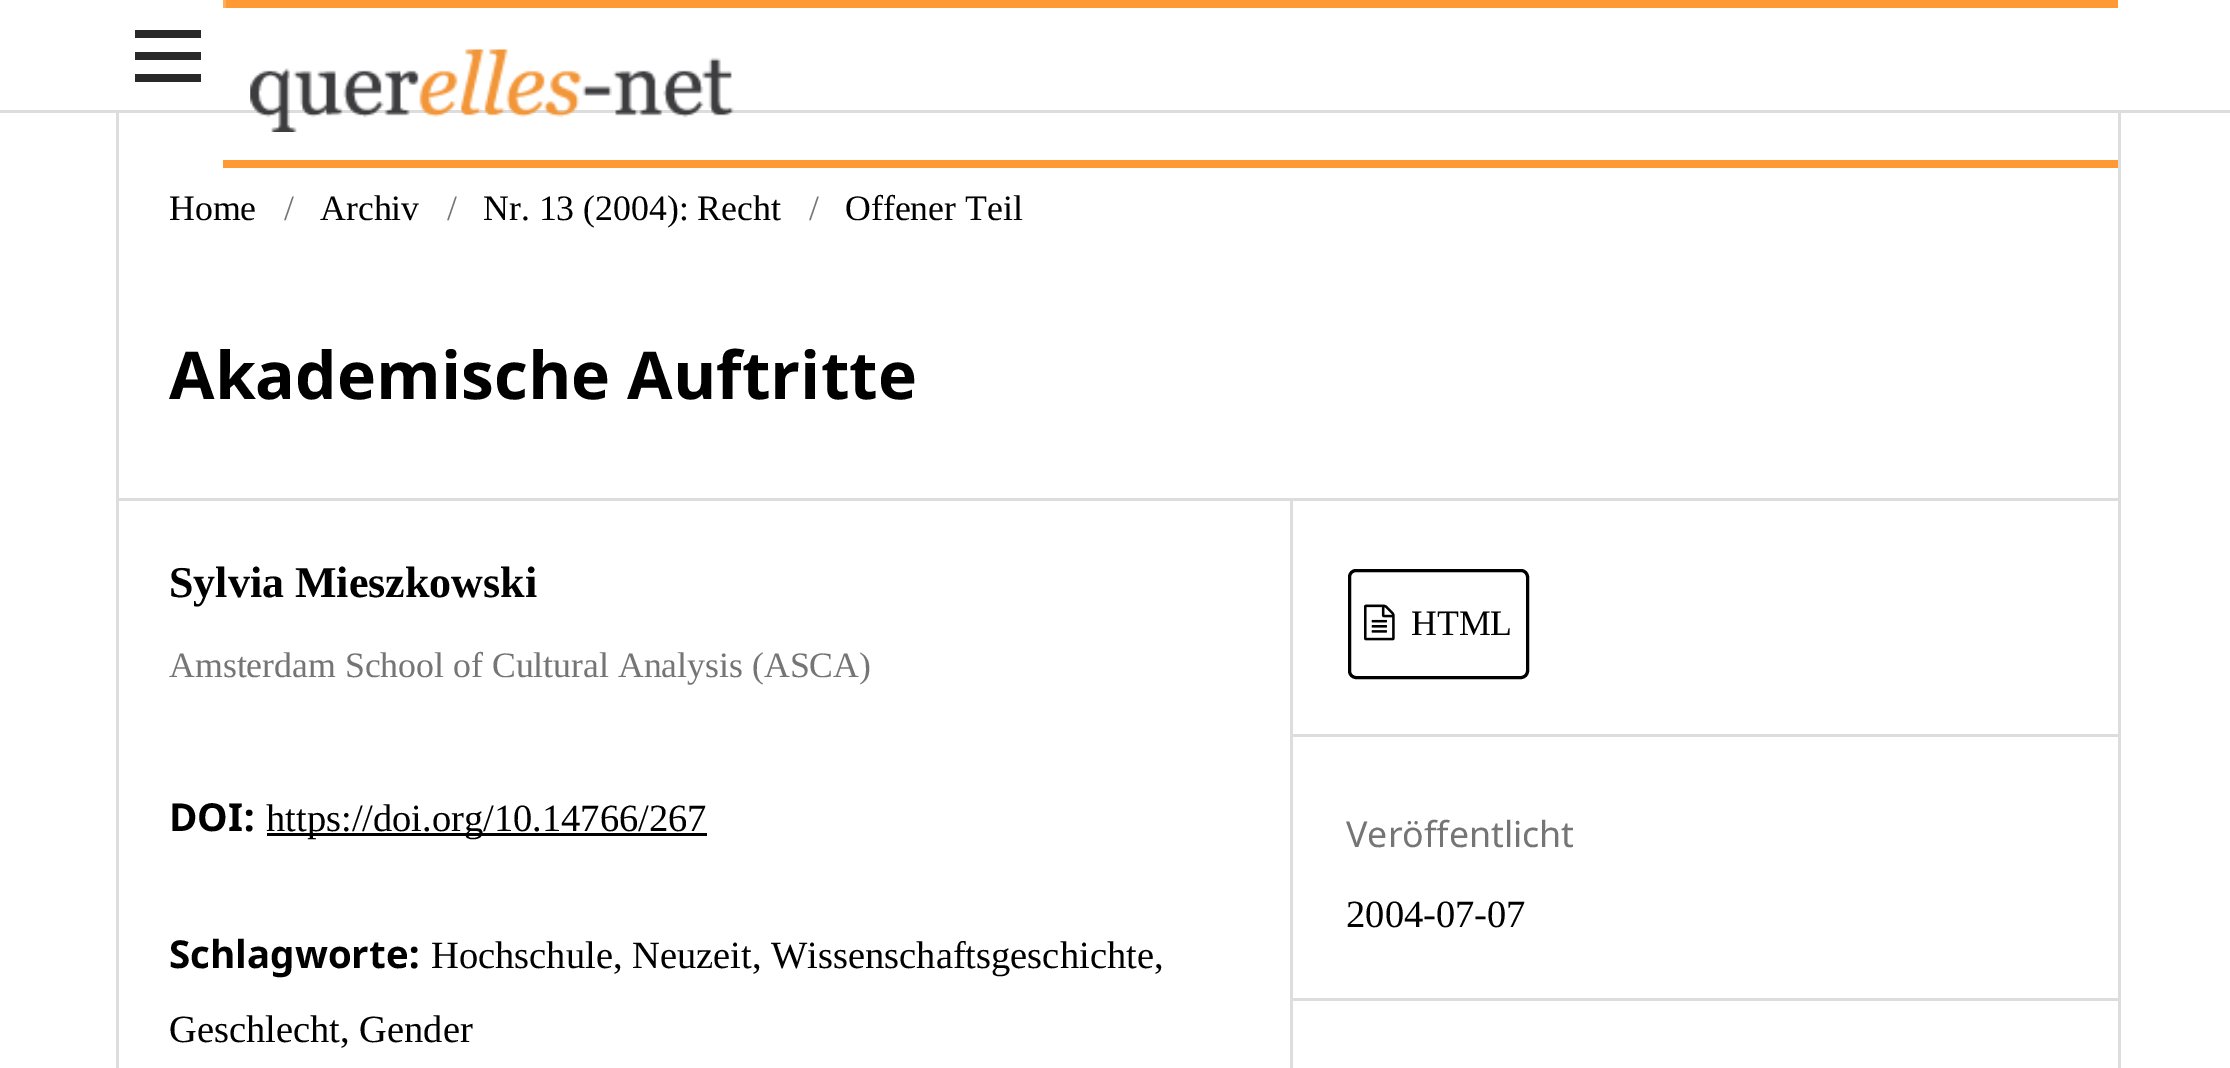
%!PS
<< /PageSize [2230 1068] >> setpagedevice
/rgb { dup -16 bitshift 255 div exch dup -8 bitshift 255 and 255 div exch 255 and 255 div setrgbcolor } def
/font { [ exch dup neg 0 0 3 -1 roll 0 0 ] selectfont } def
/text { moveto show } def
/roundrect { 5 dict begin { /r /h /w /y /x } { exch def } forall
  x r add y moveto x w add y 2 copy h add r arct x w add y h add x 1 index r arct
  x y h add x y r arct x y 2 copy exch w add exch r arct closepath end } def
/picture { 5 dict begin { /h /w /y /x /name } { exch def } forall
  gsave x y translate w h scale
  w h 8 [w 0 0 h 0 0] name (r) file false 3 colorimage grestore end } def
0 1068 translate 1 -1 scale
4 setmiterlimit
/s1 { /LiberationSerif-Regular 35.75 font 16#000000 rgb } def
/s2 { /LiberationSerif-Regular 35.75 font 16#757575 rgb } def
/s3 { /NotoSans-Bold 66 font 16#000000 rgb } def
/s4 { /LiberationSerif-Bold 44 font 16#000000 rgb } def
/s5 { /NotoSans-Bold 38.5 font 16#000000 rgb } def
/s6 { /LiberationSerif-Regular 38.5 font 16#000000 rgb } def
/s7 { /NotoSans-Regular 35.75 font 16#757575 rgb } def
16#FFFFFF rgb
0 0 2230 1068 rectfill
16#DDDDDD rgb
0 110 2230 3 rectfill
16#292929 rgb
135 74 66 8 rectfill
135 30 66 8 rectfill
135 52 66 8 rectfill
16#FF9933 rgb
223 0 1895 8 rectfill
16#FFAD5C rgb
223 0 3 8 rectfill
16#FF9933 rgb
223 160 1895 8 rectfill
(pic1.raw) 250 49 484 83 picture
16#DDDDDD rgb
116 498 2002 3 rectfill
116 113 3 955 rectfill
s1
(Home) 169 220 text
s2
(/) 284 220 text
s1
(Archiv) 320 220 text
s2
(/) 447 220 text
s1
(Nr. 13 \(2004\): Recht) 483 220 text
s2
(/) 809 220 text
s1
(Offener Teil) 845 220 text
s3
(Akademische Auftritte) 169 399 text
16#DDDDDD rgb
1290 501 3 567 rectfill
s4
(Sylvia Mieszkowski) 169 597 text
s2
(Amsterdam School of Cultural Analysis \(ASCA\)) 169 677 text
s5
(DOI:) 169 831 text
267 833 440 3 rectfill
s6
(https://doi.org/10.14766/267) 266 831 text
s5
(Schlagworte:) 169 968 text
s6
(Hochschule, Neuzeit, Wissenschaftsgeschichte,) 431 968 text
(Geschlecht, Gender) 169 1042 text
16#DDDDDD rgb
1293 734 825 3 rectfill
16#000000 rgb
3 setlinewidth
1349.5 570.5 178 107 6.5 roundrect stroke
(pic2.raw) 1364 604 31 37 picture
s1
(HTML) 1411 635 text
16#DDDDDD rgb
1293 998 825 3 rectfill
s7
(Veröffentlicht) 1346 847 text
s6
(2004-07-07) 1346 927 text
16#DDDDDD rgb
2118 113 3 955 rectfill
showpage
